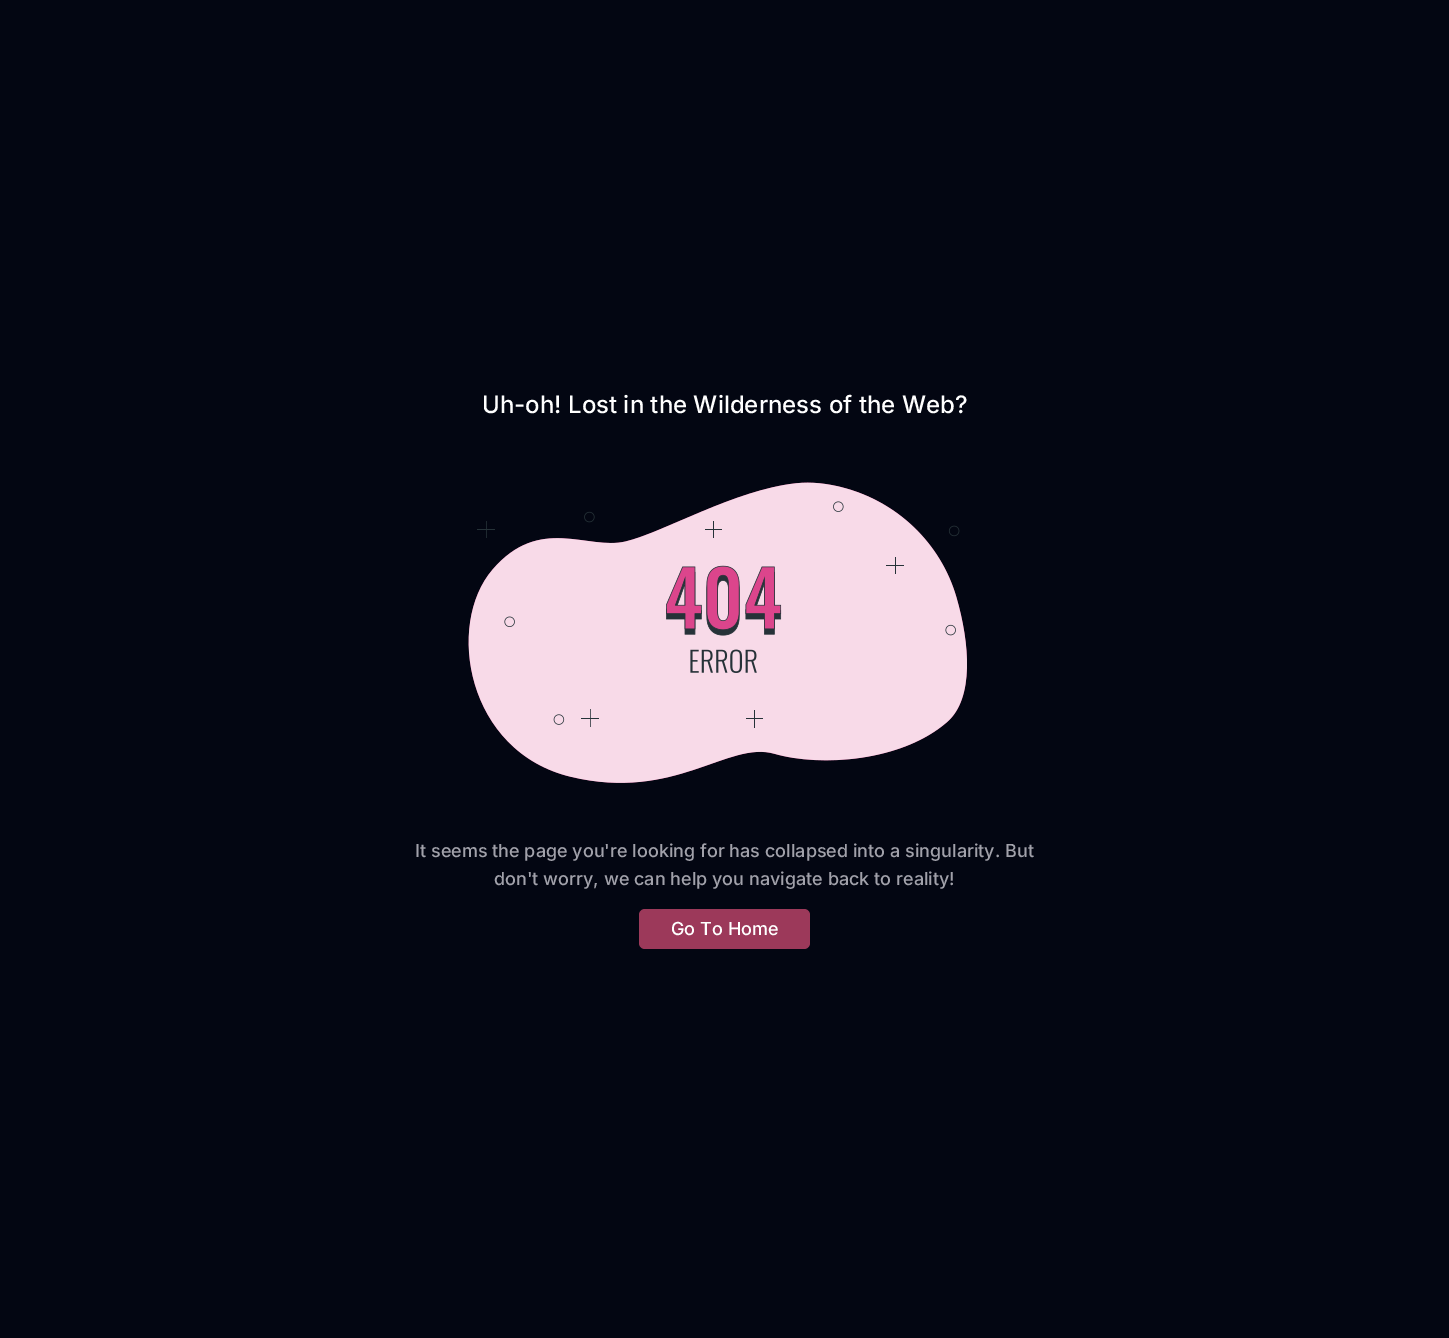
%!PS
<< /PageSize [1449 1338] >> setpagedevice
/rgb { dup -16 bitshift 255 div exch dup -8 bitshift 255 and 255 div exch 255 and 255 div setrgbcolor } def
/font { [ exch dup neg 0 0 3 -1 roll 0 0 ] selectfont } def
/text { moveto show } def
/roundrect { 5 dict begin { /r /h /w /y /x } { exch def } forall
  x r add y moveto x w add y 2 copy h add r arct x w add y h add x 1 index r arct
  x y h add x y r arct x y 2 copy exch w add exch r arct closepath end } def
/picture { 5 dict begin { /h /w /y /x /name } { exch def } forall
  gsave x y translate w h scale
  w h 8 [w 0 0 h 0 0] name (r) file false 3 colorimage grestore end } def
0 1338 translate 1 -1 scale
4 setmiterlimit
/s1 { /Inter-Medium 24 font 16#FFFFFF rgb } def
/s2 { /Inter-Medium 18 font 16#A1A1AA rgb } def
/s3 { /Inter-Medium 18 font 16#FFFFFF rgb } def
16#030612 rgb
0 0 1449 1338 rectfill
s1
(Uh-oh! Lost in the Wilderness of the Web?) 482 413 text
(pic1.raw) 468 482 499 301 picture
s2
(It seems the page you're looking for has collapsed into a singularity. But) 415 857 text
(don't worry, we can help you navigate back to reality!) 494 885 text
16#9C395A rgb
639 909 171 40 6 roundrect fill
s3
(Go To Home) 671 935 text
showpage
